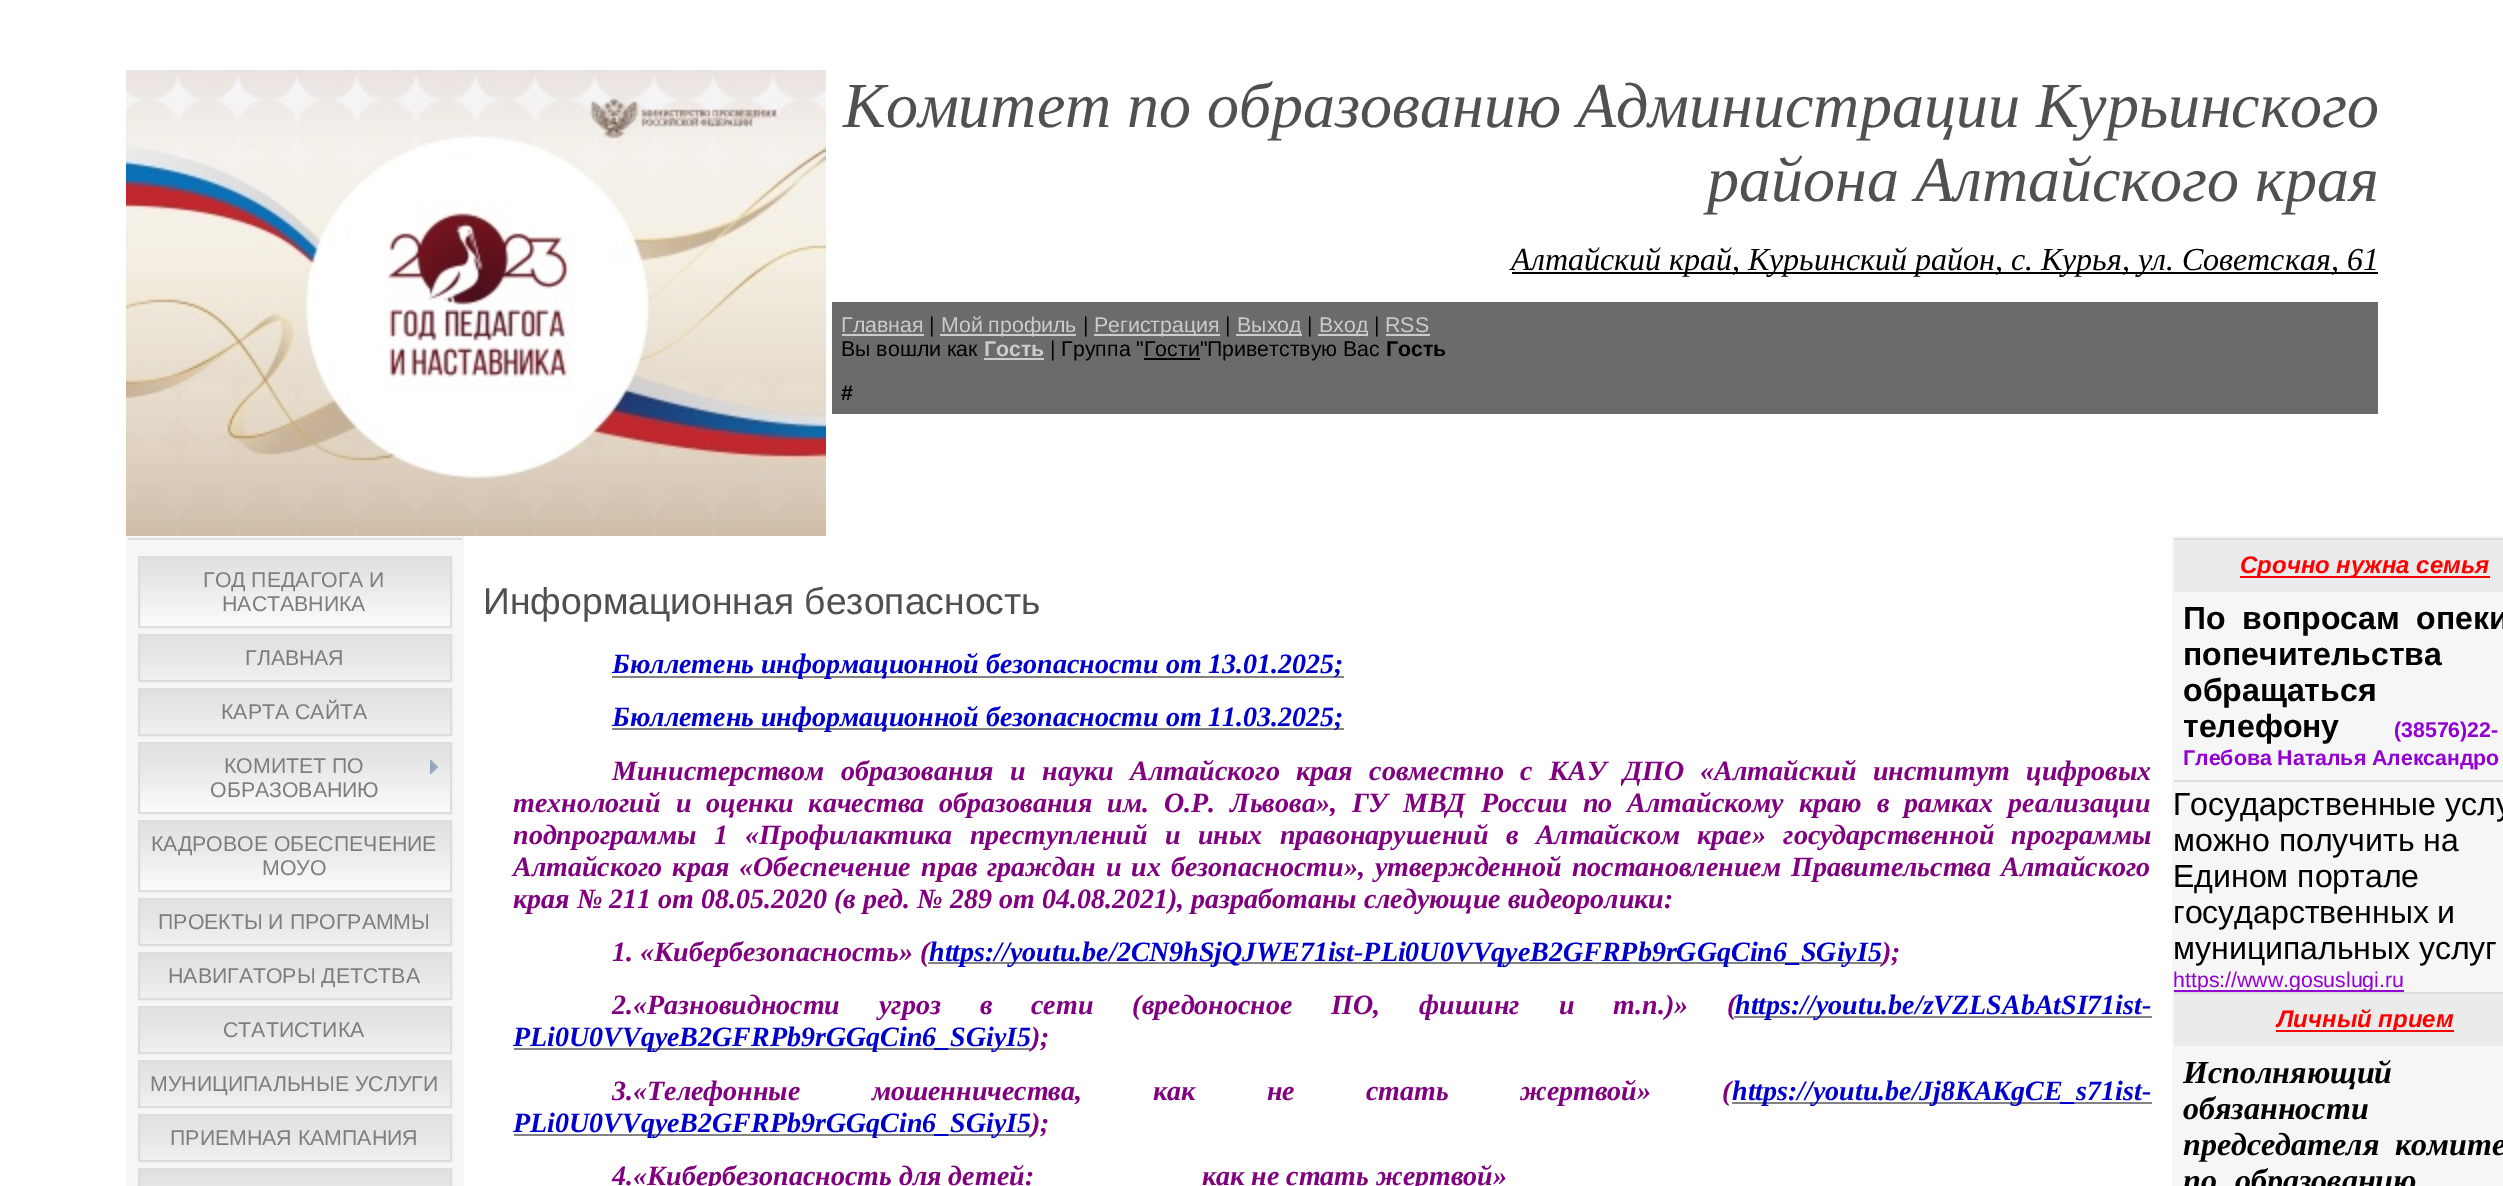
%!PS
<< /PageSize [2503 1186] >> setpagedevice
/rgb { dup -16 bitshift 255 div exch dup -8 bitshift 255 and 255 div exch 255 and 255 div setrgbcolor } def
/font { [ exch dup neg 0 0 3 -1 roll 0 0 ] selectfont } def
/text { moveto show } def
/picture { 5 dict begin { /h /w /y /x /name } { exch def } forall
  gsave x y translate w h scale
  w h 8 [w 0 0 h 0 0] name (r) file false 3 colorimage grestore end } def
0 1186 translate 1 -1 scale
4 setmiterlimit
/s1 { /LiberationSerif-Italic 64 font 16#505050 rgb } def
/s2 { /LiberationSerif-Italic 32 font 16#000000 rgb } def
/s3 { /LiberationSans-Regular 21.3 font 16#CCCCCC rgb } def
/s4 { /LiberationSans-Regular 21.3 font 16#000000 rgb } def
/s5 { /LiberationSans-Bold 21.3 font 16#CCCCCC rgb } def
/s6 { /LiberationSans-Bold 21.3 font 16#000000 rgb } def
/s7 { /LiberationSans-Regular 21.3 font 16#7D7D7D rgb } def
/s8 { /LiberationSans-Regular 37.3 font 16#505050 rgb } def
/s9 { /LiberationSerif-BoldItalic 28 font 16#0000CD rgb } def
/s10 { /LiberationSerif-BoldItalic 28 font 16#800080 rgb } def
/s11 { /LiberationSans-BoldItalic 24 font 16#FF0000 rgb } def
/s12 { /LiberationSans-Bold 32 font 16#000000 rgb } def
/s13 { /LiberationSans-Bold 21.3 font 16#9400D3 rgb } def
/s14 { /LiberationSans-Regular 32 font 16#000000 rgb } def
/s15 { /LiberationSans-Regular 21.3 font 16#9400D3 rgb } def
/s16 { /LiberationSerif-BoldItalic 32 font 16#000000 rgb } def
16#FFFFFF rgb
0 0 2503 1186 rectfill
(pic1.raw) 126 70 700 466 picture
s1
(Комитет по образованию Администрации Курьинского) 843 127 text
(района Алтайского края) 1707 201 text
16#000000 rgb
1512 272 866 2 rectfill
s2
(Алтайский край, Курьинский район, с. Курья, ул. Советская, 61) 1511 270 text
16#6B6B6B rgb
832 302 1546 112 rectfill
s3
(Главная) 841 332 text
842 334 82 2 rectfill
s4
(|) 929 332 text
16#CCCCCC rgb
940 334 136 2 rectfill
(Мой профиль) 941 332 text
s4
(|) 1083 332 text
16#CCCCCC rgb
1094 334 126 2 rectfill
(Регистрация) 1094 332 text
s4
(|) 1225 332 text
16#CCCCCC rgb
1236 334 66 2 rectfill
(Выход) 1237 332 text
s4
(|) 1307 332 text
16#CCCCCC rgb
1318 334 50 2 rectfill
(Вход) 1319 332 text
s4
(|) 1374 332 text
s3
(RSS) 1385 332 text
1386 334 44 2 rectfill
s4
(Вы вошли как) 841 356 text
s5
(Гость) 984 356 text
984 358 60 2 rectfill
s4
(| Группа "Гости"Приветствую Вас) 1050 356 text
s6
(Гость) 1386 356 text
1144 358 56 2 rectfill
(#) 841 400 text
16#F6F6F6 rgb
126 536 338 650 rectfill
16#DDDDDD rgb
128 538 334 2 rectfill
(pic2.raw) 140 558 310 68 picture
2 setlinewidth
139 557 312 70 rectstroke
s7
(ГОД ПЕДАГОГА И) 203 587 text
(НАСТАВНИКА) 222 611 text
(pic3.raw) 140 636 310 44 picture
16#DDDDDD rgb
139 635 312 46 rectstroke
s7
(ГЛАВНАЯ) 245 665 text
(pic3.raw) 140 690 310 44 picture
16#DDDDDD rgb
139 689 312 46 rectstroke
s7
(КАРТА САЙТА) 221 719 text
(pic2.raw) 140 744 310 68 picture
16#DDDDDD rgb
139 743 312 70 rectstroke
s7
(КОМИТЕТ ПО) 224 773 text
(pic4.raw) 430 760 8 14 picture
(ОБРАЗОВАНИЮ) 210 797 text
(pic2.raw) 140 822 310 68 picture
16#DDDDDD rgb
139 821 312 70 rectstroke
s7
(КАДРОВОЕ ОБЕСПЕЧЕНИЕ) 151 851 text
(МОУО) 262 875 text
(pic3.raw) 140 900 310 44 picture
16#DDDDDD rgb
139 899 312 46 rectstroke
s7
(ПРОЕКТЫ И ПРОГРАММЫ) 158 929 text
(pic3.raw) 140 954 310 44 picture
16#DDDDDD rgb
139 953 312 46 rectstroke
s7
(НАВИГАТОРЫ ДЕТСТВА) 168 983 text
(pic3.raw) 140 1008 310 44 picture
16#DDDDDD rgb
139 1007 312 46 rectstroke
s7
(СТАТИСТИКА) 223 1037 text
(pic3.raw) 140 1062 310 44 picture
16#DDDDDD rgb
139 1061 312 46 rectstroke
s7
(МУНИЦИПАЛЬНЫЕ УСЛУГИ) 150 1091 text
(pic3.raw) 140 1116 310 44 picture
16#DDDDDD rgb
139 1115 312 46 rectstroke
s7
(ПРИЕМНАЯ КАМПАНИЯ) 170 1145 text
(pic5.raw) 140 1170 310 16 picture
16#DDDDDD rgb
139 1169 312 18 rectstroke
s8
(Информационная безопасность) 483 614 text
16#838383 rgb
612 676 732 2 rectfill
s9
(Бюллетень информационной безопасности от 13.01.2025;) 612 673 text
16#838383 rgb
612 728 732 2 rectfill
s9
(Бюллетень информационной безопасности от 11.03.2025;) 612 726 text
16#800080 rgb
612 780 moveto 9.5 0 32 (Министерством образования и науки Алтайского края совместно с КАУ ДПО «Алтайский институт цифровых) widthshow
513 812 moveto 8 0 32 (технологий и оценки качества образования им. О.Р. Львова», ГУ МВД России по Алтайскому краю в рамках реализации) widthshow
513 844 moveto 10.4 0 32 (подпрограммы 1 «Профилактика преступлений и иных правонарушений в Алтайском крае» государственной программы) widthshow
513 876 moveto 3.1 0 32 (Алтайского края «Обеспечение прав граждан и их безопасности», утвержденной постановлением Правительства Алтайского) widthshow
(края № 211 от 08.05.2020 \(в ред. № 289 от 04.08.2021\), разработаны следующие видеоролики:) 513 908 text
(1. «Кибербезопасность» \() 612 961 text
16#838383 rgb
928 962 56 2 rectfill
s9
(https://) 929 961 text
16#838383 rgb
984 962 186 2 rectfill
s9
(youtu.be/2CN9) 1010 961 text
16#838383 rgb
1170 962 184 2 rectfill
s9
(hSjQJWE71ist-PLi0U0) 1183 961 text
16#838383 rgb
1354 962 514 2 rectfill
s9
(VVqyeB2GFRPb9rGGqCin6_SGiyI5) 1454 961 text
16#838383 rgb
1868 962 14 2 rectfill
s10
(\);) 1882 961 text
612 1014 moveto 32 0 32 (2.«Разновидности угроз в сети \(вредоносное ПО, фишинг и т.п.\)» \() widthshow
16#838383 rgb
1734 1016 82 2 rectfill
s9
(https://) 1735 1014 text
16#838383 rgb
1816 1016 106 2 rectfill
s9
(youtu.be/zVZLSAbAtSI71ist-) 1816 1014 text
16#838383 rgb
1922 1016 230 2 rectfill
514 1048 286 2 rectfill
s9
(PLi0U0VVqyeB2GFRPb9) 513 1046 text
16#838383 rgb
800 1048 232 2 rectfill
s9
(rGGqCin6_SGiyI5) 815 1046 text
s10
(\);) 1031 1046 text
612 1100 moveto 64.25 0 32 (3.«Телефонные мошенничества, как не стать жертвой» \() widthshow
16#838383 rgb
1732 1102 80 2 rectfill
s9
(https://) 1732 1100 text
16#838383 rgb
1812 1102 108 2 rectfill
s9
(youtu.be/) 1813 1100 text
16#838383 rgb
1920 1102 20 2 rectfill
s9
(Jj8) 1919 1100 text
16#838383 rgb
1940 1102 202 2 rectfill
s9
(KAKgCE_s71ist-) 1955 1100 text
16#838383 rgb
2142 1102 10 2 rectfill
514 1134 286 2 rectfill
s9
(PLi0U0VVqyeB2GFRPb9) 513 1132 text
16#838383 rgb
800 1134 232 2 rectfill
s9
(rGGqCin6_SGiyI5) 815 1132 text
s10
(\);) 1031 1132 text
(4.«Кибербезопасность для детей:                        как не стать жертвой») 612 1185 text
16#F6F6F6 rgb
2172 536 331 650 rectfill
16#DDDDDD rgb
2174 538 329 2 rectfill
2174 780 329 2 rectfill
16#EBEBEB rgb
2174 540 329 52 rectfill
16#FF0000 rgb
2240 576 250 2 rectfill
s11
(Срочно нужна семья) 2240 573 text
/LiberationSans-Bold 32 font
16#000000 rgb
2183 629 moveto 8 0 32 (По вопросам опеки) widthshow
(попечительства) 2183 665 text
2183 701 moveto 122 0 32 (обращаться) widthshow
(телефону) 2183 737 text
s13
(\(38576\)22-) 2394 737 text
(Глебова Наталья Александро) 2183 765 text
s14
(Государственные услу) 2173 815 text
(можно получить на) 2173 851 text
(Едином портале) 2173 887 text
(государственных и) 2173 923 text
(муниципальных услуг) 2173 959 text
16#9400D3 rgb
2174 990 218 2 rectfill
s15
(https://www.gosuslugi.ru) 2173 987 text
2392 990 12 2 rectfill
16#DDDDDD rgb
2174 992 329 2 rectfill
16#EBEBEB rgb
2174 994 329 52 rectfill
16#FF0000 rgb
2276 1030 178 2 rectfill
s11
(Личный прием) 2277 1027 text
s16
(Исполняющий) 2183 1083 text
(обязанности) 2183 1119 text
2183 1155 moveto 8 0 32 (председателя комите) widthshow
2183 1191 moveto 10 0 32 (по образованию) widthshow
showpage
